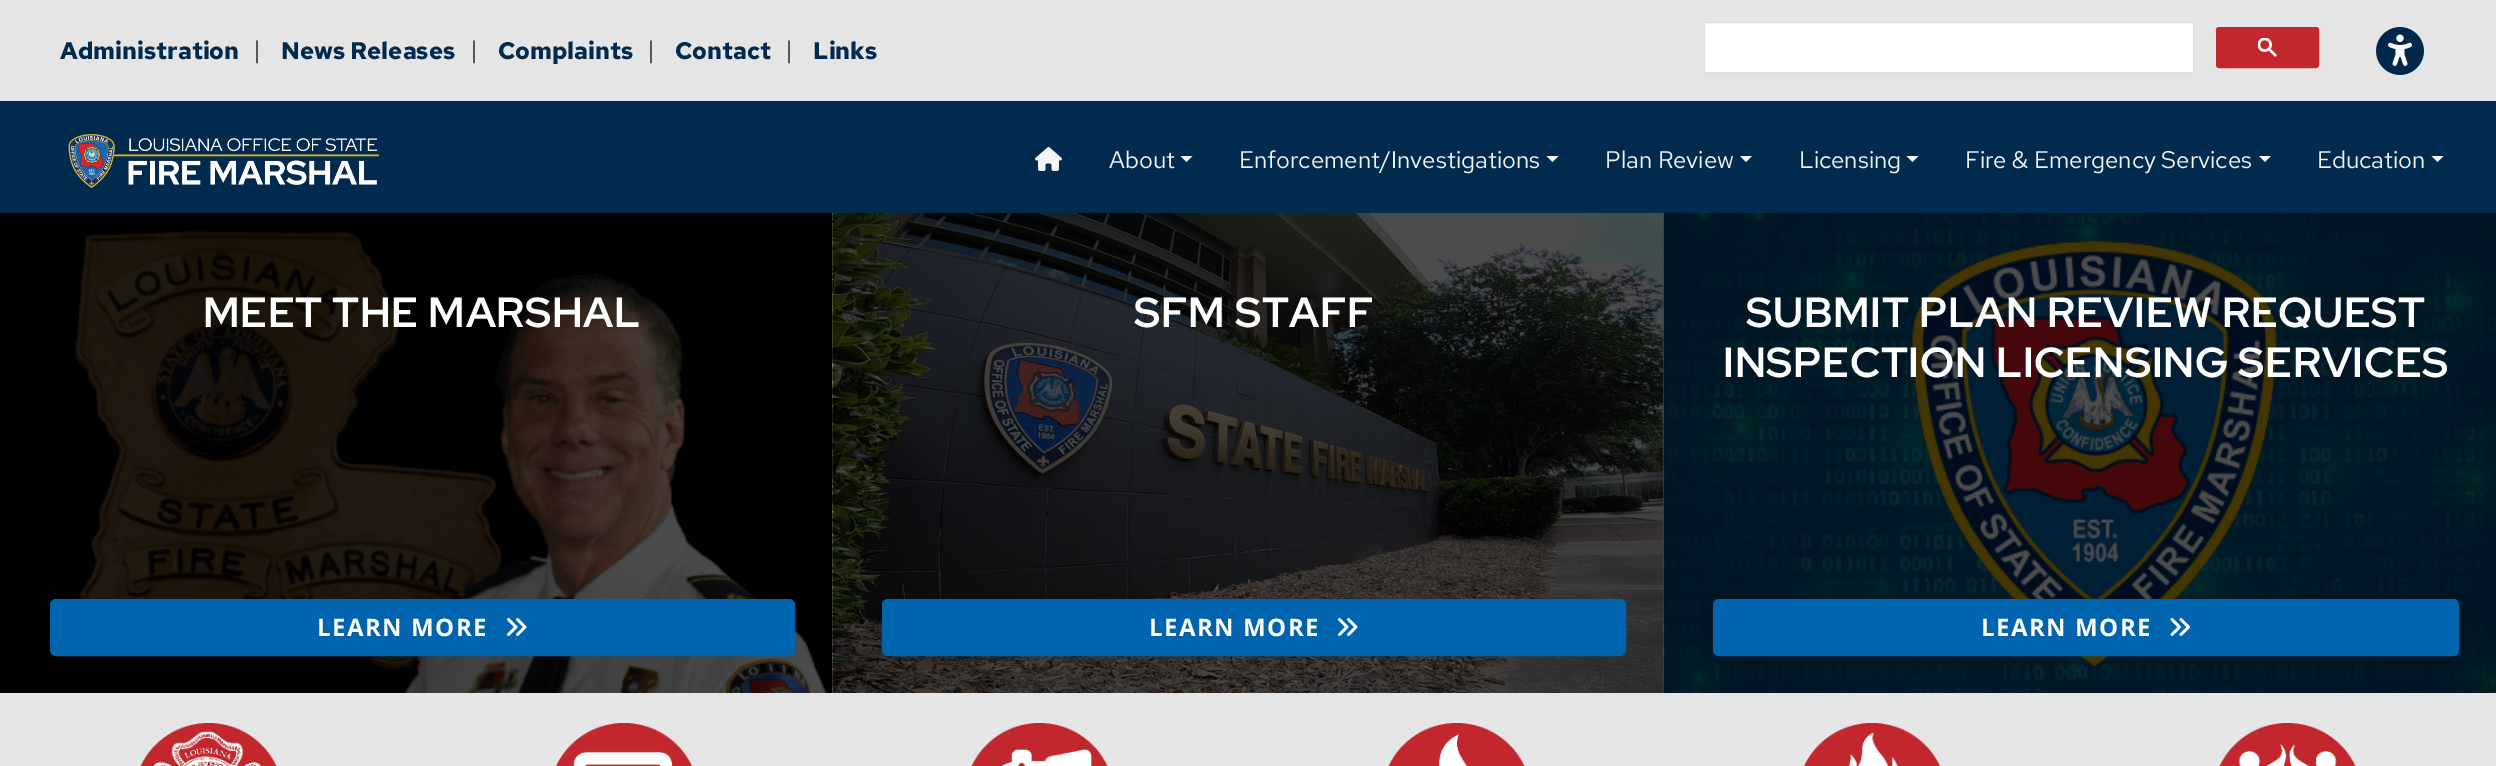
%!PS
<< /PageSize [2496 766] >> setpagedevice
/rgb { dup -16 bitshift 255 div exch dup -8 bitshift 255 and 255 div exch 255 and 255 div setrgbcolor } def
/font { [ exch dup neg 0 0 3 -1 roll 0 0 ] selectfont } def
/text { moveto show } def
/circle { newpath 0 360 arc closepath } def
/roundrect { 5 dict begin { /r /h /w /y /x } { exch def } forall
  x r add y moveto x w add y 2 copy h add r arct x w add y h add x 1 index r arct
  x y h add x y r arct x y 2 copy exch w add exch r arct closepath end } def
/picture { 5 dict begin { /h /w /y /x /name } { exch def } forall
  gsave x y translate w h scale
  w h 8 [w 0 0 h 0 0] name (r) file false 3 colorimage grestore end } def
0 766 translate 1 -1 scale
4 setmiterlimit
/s1 { /RedHatText-Bold 24 font 16#002A4E rgb } def
/s2 { /Lato-Regular 24 font 16#212529 rgb } def
/s3 { /RedHatText-Regular 24 font 16#F2F4F6 rgb } def
16#FFFFFF rgb
0 0 2496 766 rectfill
16#E5E5E5 rgb
0 0 2496 101 rectfill
s1
(Administration) 60 59 text
s2
(|) 254 59 text
s1
(News Releases) 281 59 text
s2
(|) 471 59 text
s1
(Complaints) 498 59 text
s2
(|) 648 59 text
s1
(Contact) 675 59 text
s2
(|) 786 59 text
s1
(Links) 813 59 text
16#FFFFFF rgb
1704 22 moveto 2194 22 lineto 2194 73 lineto 1704 73 lineto closepath gsave fill grestore
16#DFE1E5 rgb
2 setlinewidth
stroke
16#C1272D rgb
2217 28 101 39 2 roundrect gsave fill grestore
stroke
(pic1.raw) 2258 38 19 19 picture
16#FFFFFF rgb
2400 51 24 circle fill
(pic2.raw) 2376 27 48 48 picture
16#002A4E rgb
0 101 2496 112 rectfill
(pic3.raw) 68 134 311 55 picture
(pic4.raw) 1035 147 27 24 picture
s3
(About) 1109 168 text
1180.5 156 moveto 1192.5 156 lineto 1186.5 162 lineto closepath fill
(Enforcement/Investigations) 1239 168 text
1546.5 156 moveto 1558.5 156 lineto 1552.5 162 lineto closepath fill
(Plan Review) 1605 168 text
1740 156 moveto 1752 156 lineto 1746 162 lineto closepath fill
(Licensing) 1799 168 text
1906.5 156 moveto 1918.5 156 lineto 1912.5 162 lineto closepath fill
(Fire & Emergency Services) 1965 168 text
2259 156 moveto 2271 156 lineto 2265 162 lineto closepath fill
(Education) 2317 168 text
2431.5 156 moveto 2443.5 156 lineto 2437.5 162 lineto closepath fill
(pic5.raw) 0 213 833 480 picture
/RedHatDisplay-Bold 42 font
16#FFFFFF rgb
203 327 moveto 0.75 0 (MEET THE MARSHAL) ashow
16#0064AF rgb
51 600 743 55 5 roundrect gsave fill grestore
stroke
/OpenSans-Bold 24 font
16#FFFFFF rgb
317 636 moveto 1.5 0 (LEARN MORE) ashow
(pic6.raw) 507 618 20 18 picture
(pic7.raw) 832 213 832 480 picture
/RedHatDisplay-Bold 42 font
1134 327 moveto 0.75 0 (SFM STAFF) ashow
16#0064AF rgb
883 600 742 55 5 roundrect gsave fill grestore
stroke
/OpenSans-Bold 24 font
16#FFFFFF rgb
1149 636 moveto 1.5 0 (LEARN MORE) ashow
(pic6.raw) 1338 618 20 18 picture
(pic8.raw) 1663 213 833 480 picture
/RedHatDisplay-Bold 42 font
1746 327 moveto 0.75 0 (SUBMIT PLAN REVIEW REQUEST) ashow
1723 377 moveto 0.75 0 (INSPECTION LICENSING SERVICES) ashow
16#0064AF rgb
1714 600 744 55 5 roundrect gsave fill grestore
stroke
/OpenSans-Bold 24 font
16#FFFFFF rgb
1981 636 moveto 1.5 0 (LEARN MORE) ashow
(pic9.raw) 2170 618 20 18 picture
16#E6E6E6 rgb
0 693 2496 73 rectfill
(pic10.raw) 140 723 137 43 picture
(pic11.raw) 555 723 138 43 picture
(pic12.raw) 971 723 137 43 picture
(pic13.raw) 1388 723 137 43 picture
(pic14.raw) 1803 723 138 43 picture
(pic15.raw) 2219 723 137 43 picture
showpage
